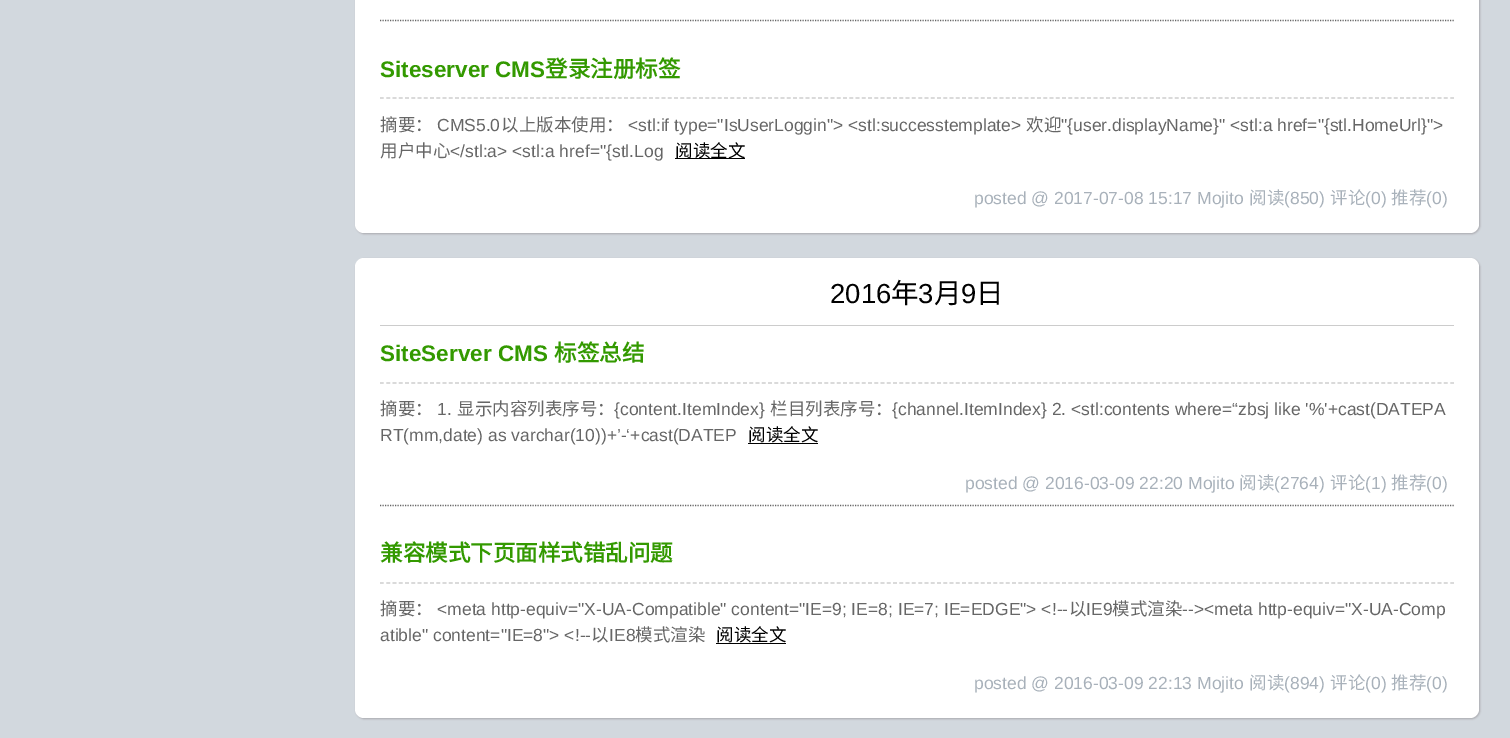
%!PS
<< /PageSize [1510 738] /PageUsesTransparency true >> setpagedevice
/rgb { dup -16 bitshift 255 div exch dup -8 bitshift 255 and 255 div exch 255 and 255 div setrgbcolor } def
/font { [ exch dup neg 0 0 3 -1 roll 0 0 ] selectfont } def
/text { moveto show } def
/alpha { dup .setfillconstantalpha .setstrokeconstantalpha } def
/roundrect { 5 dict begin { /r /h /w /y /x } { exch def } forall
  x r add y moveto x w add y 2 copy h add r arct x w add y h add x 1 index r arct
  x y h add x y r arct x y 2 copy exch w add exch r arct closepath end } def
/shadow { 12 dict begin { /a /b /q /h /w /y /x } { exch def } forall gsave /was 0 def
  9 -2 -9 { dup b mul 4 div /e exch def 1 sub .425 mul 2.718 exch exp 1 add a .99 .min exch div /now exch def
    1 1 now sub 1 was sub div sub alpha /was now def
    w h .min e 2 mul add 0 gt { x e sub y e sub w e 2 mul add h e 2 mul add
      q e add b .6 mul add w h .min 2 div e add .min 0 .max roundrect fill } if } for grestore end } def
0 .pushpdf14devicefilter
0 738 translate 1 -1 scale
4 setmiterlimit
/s1 { /LiberationSans-Bold 22.5 font 16#339900 rgb } def
/s2 { /NotoSansCJKSC-Bold 22.5 font 16#339900 rgb } def
/s3 { /NotoSansCJKSC-Regular 17.5 font 16#666666 rgb } def
/s4 { /LiberationSans-Regular 17.5 font 16#666666 rgb } def
/s5 { /NotoSansCJKSC-Regular 17.5 font 16#000000 rgb } def
/s6 { /LiberationSans-Regular 17.5 font 16#A8B1BA rgb } def
/s7 { /NotoSansCJKSC-Regular 17.5 font 16#A8B1BA rgb } def
/s8 { /LiberationSans-Regular 27.5 font 16#000000 rgb } def
/s9 { /NotoSansCJKSC-Regular 27.5 font 16#000000 rgb } def
16#D2D8DE rgb
0 0 1510 738 rectfill
16#A7A8AD rgb
356 -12 1124 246 9 1 1 shadow
16#FFFFFF rgb
355 -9 1124 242 9 roundrect fill
16#666666 rgb
1.2 setlinewidth
[1.25 1.25] 0 setdash
380 20.5 moveto 1454 20.5 lineto stroke
16#CCCCCC rgb
[3.75 2.51] 0 setdash
380 98 moveto 1454 98 lineto stroke
s1
(Siteserver CMS) 380 77 text
s2
(登录注册标签) 545 77 text
s3
(摘要：) 380 131 text
s4
(CMS5.0) 437 131 text
s3
(以上版本使用：) 501 131 text
s4
(<stl:if type="IsUserLoggin"> <stl:successtemplate>) 628 131 text
s3
(欢迎) 1026 131 text
s4
("{user.displayName}" <stl:a href="{stl.HomeUrl}">) 1061 131 text
s3
(用户中心) 380 157 text
s4
(</stl:a> <stl:a href="{stl.Log) 450 157 text
16#000000 rgb
675 158 70 1 rectfill
s5
(阅读全文) 675 157 text
s6
(posted @ 2017-07-08 15:17 Mojito) 974 204 text
s7
(阅读) 1249 204 text
s6
(\(850\)) 1284 204 text
s7
(评论) 1330 204 text
s6
(\(0\)) 1365 204 text
s7
(推荐) 1391 204 text
s6
(\(0\)) 1426 204 text
16#A7A8AD rgb
356 259 1124 460 9 1 1 shadow
16#FFFFFF rgb
355 258 1124 460 9 roundrect fill
16#CCCCCC rgb
380 325 1074 1 rectfill
s8
(2016) 830 303 text
s9
(年) 891 303 text
s8
(3) 918 303 text
s9
(月) 934 303 text
s8
(9) 961 303 text
s9
(日) 976 303 text
16#CCCCCC rgb
380 383 moveto 1454 383 lineto stroke
s1
(SiteServer CMS) 380 361 text
s2
(标签总结) 554 361 text
s3
(摘要：) 380 415 text
s4
(1.) 437 415 text
s3
(显示内容列表序号：) 457 415 text
s4
({content.ItemIndex}) 614 415 text
s3
(栏目列表序号：) 770 415 text
s4
({channel.ItemIndex} 2. <stl:contents where=“zbsj like '%'+cast\(DATEPA) 892 415 text
(RT\(mm,date\) as varchar\(10\)\)+’-‘+cast\(DATEP) 380 441 text
s5
(阅读全文) 748 441 text
748 443 70 1 rectfill
s6
(posted @ 2016-03-09 22:20 Mojito) 965 489 text
s7
(阅读) 1239 489 text
s6
(\(2764\)) 1274 489 text
s7
(评论) 1330 489 text
s6
(\(1\)) 1365 489 text
s7
(推荐) 1391 489 text
s6
(\(0\)) 1426 489 text
16#666666 rgb
[1.25 1.25] 0 setdash
380 505.5 moveto 1454 505.5 lineto stroke
16#CCCCCC rgb
[3.75 2.51] 0 setdash
380 583 moveto 1454 583 lineto stroke
s2
(兼容模式下页面样式错乱问题) 380 561 text
s3
(摘要：) 380 615 text
s4
(<meta http-equiv="X-UA-Compatible" content="IE=9; IE=8; IE=7; IE=EDGE"> <!--) 437 615 text
s3
(以) 1069 615 text
s4
(IE9) 1086 615 text
s3
(模式渲染) 1112 615 text
s4
(--><meta http-equiv="X-UA-Comp) 1182 615 text
(atible" content="IE=8"> <!--) 380 641 text
s3
(以) 591 641 text
s4
(IE8) 609 641 text
s3
(模式渲染) 635 641 text
s5
(阅读全文) 716 641 text
716 643 70 1 rectfill
s6
(posted @ 2016-03-09 22:13 Mojito) 974 689 text
s7
(阅读) 1249 689 text
s6
(\(894\)) 1284 689 text
s7
(评论) 1330 689 text
s6
(\(0\)) 1365 689 text
s7
(推荐) 1391 689 text
s6
(\(0\)) 1426 689 text
.poppdf14devicefilter showpage
